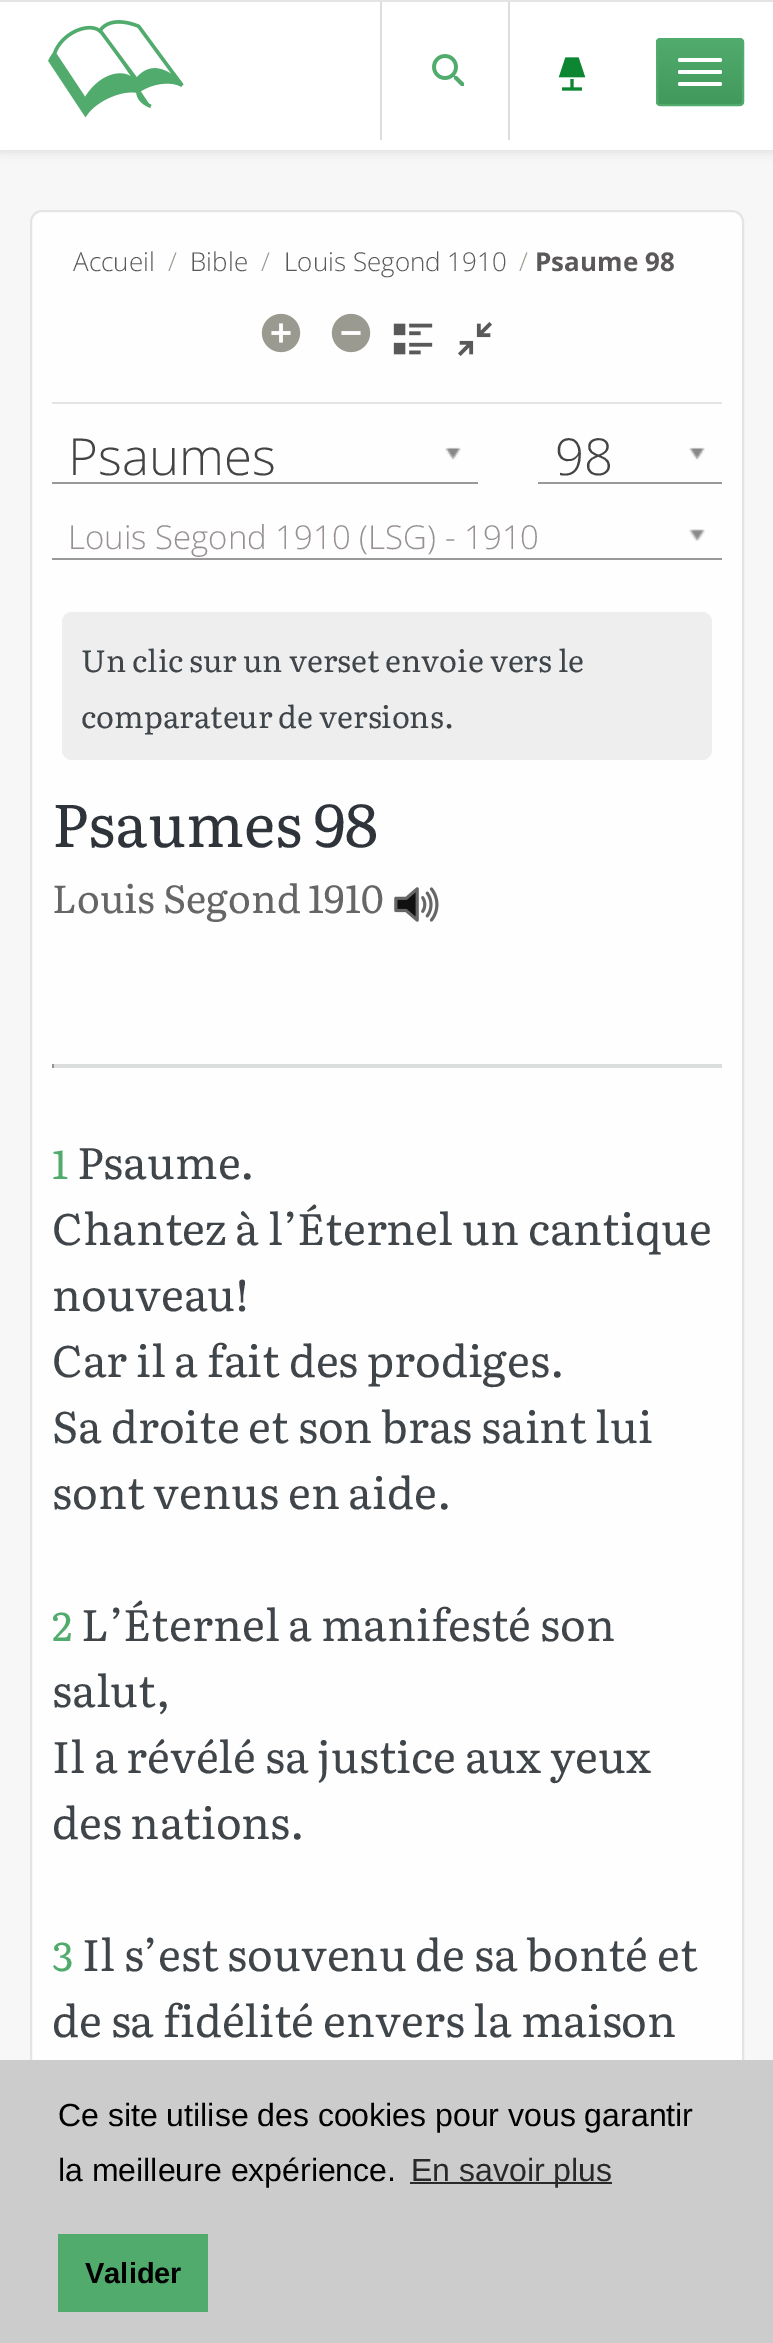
%!PS
<< /PageSize [773 2343] /PageUsesTransparency true >> setpagedevice
/rgb { dup -16 bitshift 255 div exch dup -8 bitshift 255 and 255 div exch 255 and 255 div setrgbcolor } def
/font { [ exch dup neg 0 0 3 -1 roll 0 0 ] selectfont } def
/text { moveto show } def
/alpha { dup .setfillconstantalpha .setstrokeconstantalpha } def
/roundrect { 5 dict begin { /r /h /w /y /x } { exch def } forall
  x r add y moveto x w add y 2 copy h add r arct x w add y h add x 1 index r arct
  x y h add x y r arct x y 2 copy exch w add exch r arct closepath end } def
/shadow { 12 dict begin { /a /b /q /h /w /y /x } { exch def } forall gsave /was 0 def
  9 -2 -9 { dup b mul 4 div /e exch def 1 sub .425 mul 2.718 exch exp 1 add a .99 .min exch div /now exch def
    1 1 now sub 1 was sub div sub alpha /was now def
    w h .min e 2 mul add 0 gt { x e sub y e sub w e 2 mul add h e 2 mul add
      q e add b .6 mul add w h .min 2 div e add .min 0 .max roundrect fill } if } for grestore end } def
/picture { 5 dict begin { /h /w /y /x /name } { exch def } forall
  gsave x y translate w h scale
  w h 8 [w 0 0 h 0 0] name (r) file false 3 colorimage grestore end } def
0 .pushpdf14devicefilter
0 2343 translate 1 -1 scale
4 setmiterlimit
/s1 { /OpenSans-Light 26 font 16#5A5858 rgb } def
/s2 { /OpenSans-Light 26 font 16#9A9A90 rgb } def
/s3 { /OpenSans-Bold 26 font 16#5A5858 rgb } def
/s4 { /OpenSans-Light 51 font 16#444444 rgb } def
/s5 { /OpenSans-Light 33 font 16#989191 rgb } def
/s6 { /Literata-Regular 30.6 font 16#40454A rgb } def
/s7 { /Literata-Regular 60 font 16#2F343B rgb } def
/s8 { /Literata-Regular 39 font 16#666666 rgb } def
/s9 { /Literata-Regular 40 font 16#51AB6D rgb } def
/s10 { /Literata-Regular 44 font 16#40454A rgb } def
/s11 { /LiberationSans-Regular 32 font 16#000000 rgb } def
/s12 { /LiberationSans-Regular 32 font 16#292929 rgb } def
/s13 { /LiberationSans-Bold 29 font 16#000000 rgb } def
16#F7F7F7 rgb
0 0 773 2343 rectfill
16#DCDDDD rgb
0 2 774 150 0 5 1 shadow
16#FFFFFF rgb
0 2 773 148 rectfill
16#E4E4E4 rgb
0 0 773 2 rectfill
(pic1.raw) 48 20 136 98 picture
16#DCDDDD rgb
508 2 2 138 rectfill
380 2 2 138 rectfill
(pic2.raw) 432 54 32 32 picture
(pic3.raw) 558 57 28 34 picture
gsave
656 38 88 68 4 roundrect clip newpath
gsave 656 40 moveto 744 40 lineto 744 104 lineto 656 104 lineto closepath clip newpath
<< /ShadingType 2 /ColorSpace /DeviceRGB /Coords [700 40 700 104] /Extend [true true] /Function << /FunctionType 2 /Domain [0 1] /C0 [0.318 0.671 0.427] /C1 [0.255 0.604 0.361] /N 1 >> >> shfill grestore
grestore
16#51AB6D rgb
2 setlinewidth
657 39 86 66 3 roundrect stroke
16#FFFFFF rgb
678 58 44 4 2 roundrect fill
678 70 44 4 2 roundrect fill
678 82 44 4 2 roundrect fill
16#FEFEFE rgb
31 211 712 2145 11 roundrect gsave fill grestore
16#E4E4E4 rgb
stroke
52 402 670 2 rectfill
s1
(Accueil) 73 271 text
s2
(/) 168 271 text
s1
(Bible) 190 271 text
s2
(/) 261 271 text
s1
(Louis Segond 1910) 284 271 text
s2
(/) 519 271 text
s3
(Psaume 98) 535 271 text
(pic4.raw) 261 313 40 40 picture
(pic5.raw) 331 313 40 40 picture
(pic6.raw) 393 323 40 32 picture
(pic7.raw) 458 322 34 34 picture
16#999999 rgb
52 482 426 2 rectfill
s4
(Psaumes) 68 475 text
(pic8.raw) 445 447 16 13 picture
16#999999 rgb
538 482 184 2 rectfill
s4
(98) 555 475 text
(pic8.raw) 689 447 16 13 picture
16#999999 rgb
52 558 670 2 rectfill
s5
(Louis Segond 1910 \(LSG\) - 1910) 68 549 text
(pic9.raw) 689 529 16 13 picture
16#EEEEEE rgb
62 612 650 148 10 roundrect fill
s6
(Un clic sur un verset envoie vers le) 81 672 text
(comparateur de versions.) 81 728 text
s7
(Psaumes 98) 52 847 text
s8
(Louis Segond 1910) 52 913 text
(pic10.raw) 394 887 45 35 picture
16#DCDDDD rgb
52 1064 670 2 rectfill
720 1064 2 4 rectfill
52 1066 670 2 rectfill
16#939393 rgb
52 1064 2 4 rectfill
s9
(1) 52 1179 text
s10
(Psaume.) 77 1179 text
(Chantez à l’Éternel un cantique) 52 1245 text
(nouveau!) 52 1311 text
(Car il a fait des prodiges.) 52 1377 text
(Sa droite et son bras saint lui) 52 1443 text
(sont venus en aide.) 52 1509 text
s9
(2) 52 1641 text
s10
(L’Éternel a manifesté son) 81 1641 text
(salut,) 52 1707 text
(Il a révélé sa justice aux yeux) 52 1773 text
(des nations.) 52 1839 text
s9
(3) 52 1971 text
s10
(Il s’est souvenu de sa bonté et) 82 1971 text
(de sa fidélité envers la maison) 52 2037 text
16#CCCCCC rgb
0 2060 773 283 rectfill
s11
(Ce site utilise des cookies pour vous garantir) 58 2126 text
(la meilleure expérience.) 58 2181 text
16#292929 rgb
410 2182 202 2 rectfill
(En savoir plus) 411 2181 text
16#51AB6D rgb
58 2234 150 78 rectfill
s13
(Valider) 85 2283 text
.poppdf14devicefilter showpage
